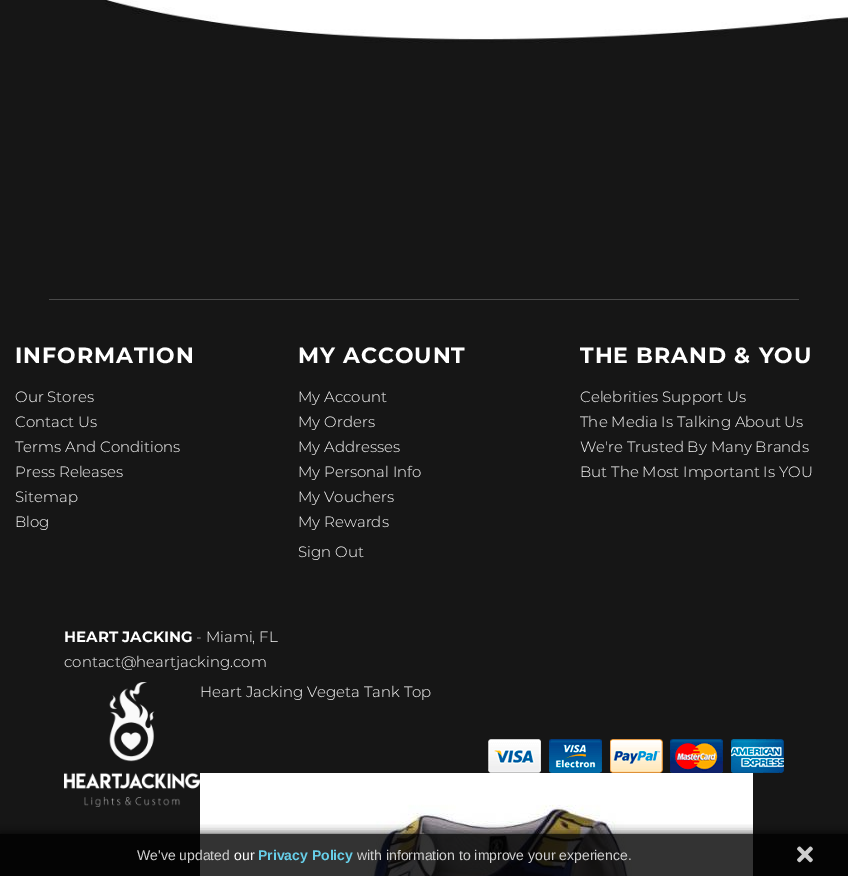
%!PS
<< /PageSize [848 876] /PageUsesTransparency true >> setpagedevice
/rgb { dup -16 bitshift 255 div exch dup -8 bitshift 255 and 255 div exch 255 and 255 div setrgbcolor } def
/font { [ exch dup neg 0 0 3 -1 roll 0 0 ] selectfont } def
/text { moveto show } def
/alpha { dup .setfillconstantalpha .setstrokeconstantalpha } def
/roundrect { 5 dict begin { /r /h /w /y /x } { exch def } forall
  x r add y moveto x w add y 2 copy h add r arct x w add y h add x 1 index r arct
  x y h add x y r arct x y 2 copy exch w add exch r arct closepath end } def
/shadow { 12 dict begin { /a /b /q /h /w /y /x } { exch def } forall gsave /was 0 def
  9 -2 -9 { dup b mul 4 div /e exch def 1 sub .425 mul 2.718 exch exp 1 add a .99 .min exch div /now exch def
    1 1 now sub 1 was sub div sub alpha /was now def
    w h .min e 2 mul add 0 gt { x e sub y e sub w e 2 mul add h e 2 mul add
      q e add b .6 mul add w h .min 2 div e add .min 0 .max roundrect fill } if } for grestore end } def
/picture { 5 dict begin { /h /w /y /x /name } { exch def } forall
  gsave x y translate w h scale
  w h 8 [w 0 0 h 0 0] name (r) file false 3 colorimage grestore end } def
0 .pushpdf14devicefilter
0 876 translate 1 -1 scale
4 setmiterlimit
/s1 { /Montserrat-Light 15 font 16#FFFFFF rgb } def
/s2 { /Montserrat-Bold 15 font 16#FFFFFF rgb } def
/s3 { /LiberationSans-Regular 14 font 16#D0D0D0 rgb } def
/s4 { /LiberationSans-Regular 14 font 16#FFFFFF rgb } def
/s5 { /LiberationSans-Bold 14 font 16#67CFE9 rgb } def
16#161616 rgb
0 0 848 876 rectfill
(pic1.raw) 105 0 743 43 picture
16#4A4A4A rgb
49 299 750 1 rectfill
/Montserrat-Bold 22 font
16#FFFFFF rgb
15 363 moveto 1 0 (INFORMATION) ashow
s1
(Our Stores) 15 402 text
(Contact Us) 15 427 text
(Terms And Conditions) 15 452 text
(Press Releases) 15 477 text
(Sitemap) 15 502 text
(Blog) 15 527 text
/Montserrat-Bold 22 font
298 363 moveto 1 0 (MY ACCOUNT) ashow
s1
(My Account) 298 402 text
(My Orders) 298 427 text
(My Addresses) 298 452 text
(My Personal Info) 298 477 text
(My Vouchers) 298 502 text
(My Rewards) 298 527 text
(Sign Out) 298 557 text
/Montserrat-Bold 22 font
580 363 moveto 1 0 (THE BRAND & YOU) ashow
s1
(Celebrities Support Us) 580 402 text
(The Media Is Talking About Us) 580 427 text
(We're Trusted By Many Brands) 580 452 text
(But The Most Important Is YOU) 580 477 text
s2
(HEART JACKING) 64 642 text
s1
(- Miami, FL) 196 642 text
(contact@heartjacking.com) 64 667 text
(pic2.raw) 64 682 136 125 picture
(Heart Jacking Vegeta Tank Top) 200 697 text
(pic3.raw) 200 773 553 103 picture
(pic4.raw) 488 739 296 34 picture
gsave
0 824 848 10 rectclip
16#000000 rgb
0 834 848 42 0 5 0.8 shadow
grestore
0.8 alpha
16#000000 rgb
0 834 848 42 rectfill
1 alpha
s3
(We've updated) 137 860 text
s4
(our) 234 860 text
s5
(Privacy Policy) 258 860 text
s3
(with information to improve your experience.) 357 860 text
(pic5.raw) 797 846 16 17 picture
.poppdf14devicefilter showpage
